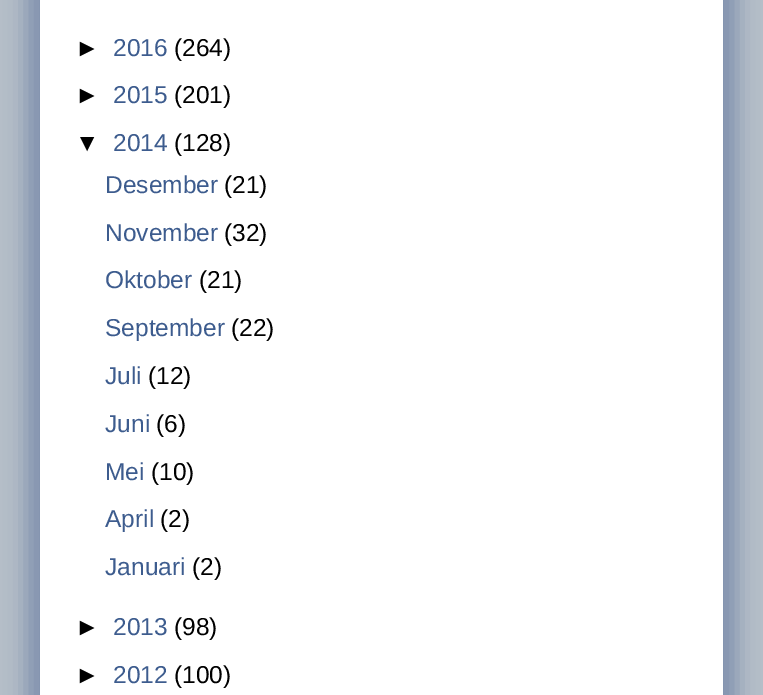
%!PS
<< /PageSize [763 695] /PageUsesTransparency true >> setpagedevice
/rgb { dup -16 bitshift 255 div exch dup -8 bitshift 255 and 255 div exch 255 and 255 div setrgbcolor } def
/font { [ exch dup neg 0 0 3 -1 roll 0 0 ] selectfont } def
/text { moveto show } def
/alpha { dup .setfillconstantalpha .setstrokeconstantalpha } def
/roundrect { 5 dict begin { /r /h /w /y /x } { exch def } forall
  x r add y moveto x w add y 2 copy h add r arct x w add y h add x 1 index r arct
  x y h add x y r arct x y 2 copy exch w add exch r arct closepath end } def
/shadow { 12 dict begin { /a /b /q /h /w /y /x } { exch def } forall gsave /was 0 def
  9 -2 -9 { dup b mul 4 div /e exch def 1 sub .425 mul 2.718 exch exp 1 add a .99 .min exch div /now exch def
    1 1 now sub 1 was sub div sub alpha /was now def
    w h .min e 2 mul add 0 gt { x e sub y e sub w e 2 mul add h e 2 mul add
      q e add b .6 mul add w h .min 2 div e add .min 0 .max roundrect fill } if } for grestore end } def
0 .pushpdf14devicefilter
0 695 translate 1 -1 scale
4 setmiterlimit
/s1 { /LiberationSans-Regular 24.5 font 16#000000 rgb } def
/s2 { /LiberationSans-Regular 24.5 font 16#3D5C8E rgb } def
16#B5BEC8 rgb
0 0 763 695 rectfill
16#8091AD rgb
26 -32 711 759 0 10.5 1 shadow
16#FFFFFF rgb
40 0 683 695 rectfill
s1
(►) 75 56 text
s2
(2016) 113 56 text
s1
(\(264\)) 174 56 text
(►) 75 103 text
s2
(2015) 113 103 text
s1
(\(201\)) 174 103 text
(▼) 75 151 text
s2
(2014) 113 151 text
s1
(\(128\)) 174 151 text
s2
(Desember) 105 193 text
s1
(\(21\)) 224 193 text
s2
(November) 105 241 text
s1
(\(32\)) 224 241 text
s2
(Oktober) 105 288 text
s1
(\(21\)) 199 288 text
s2
(September) 105 336 text
s1
(\(22\)) 231 336 text
s2
(Juli) 105 384 text
s1
(\(12\)) 148 384 text
s2
(Juni) 105 432 text
s1
(\(6\)) 156 432 text
s2
(Mei) 105 480 text
s1
(\(10\)) 151 480 text
s2
(April) 105 527 text
s1
(\(2\)) 160 527 text
s2
(Januari) 105 575 text
s1
(\(2\)) 192 575 text
(►) 75 635 text
s2
(2013) 113 635 text
s1
(\(98\)) 174 635 text
(►) 75 683 text
s2
(2012) 113 683 text
s1
(\(100\)) 174 683 text
.poppdf14devicefilter showpage
